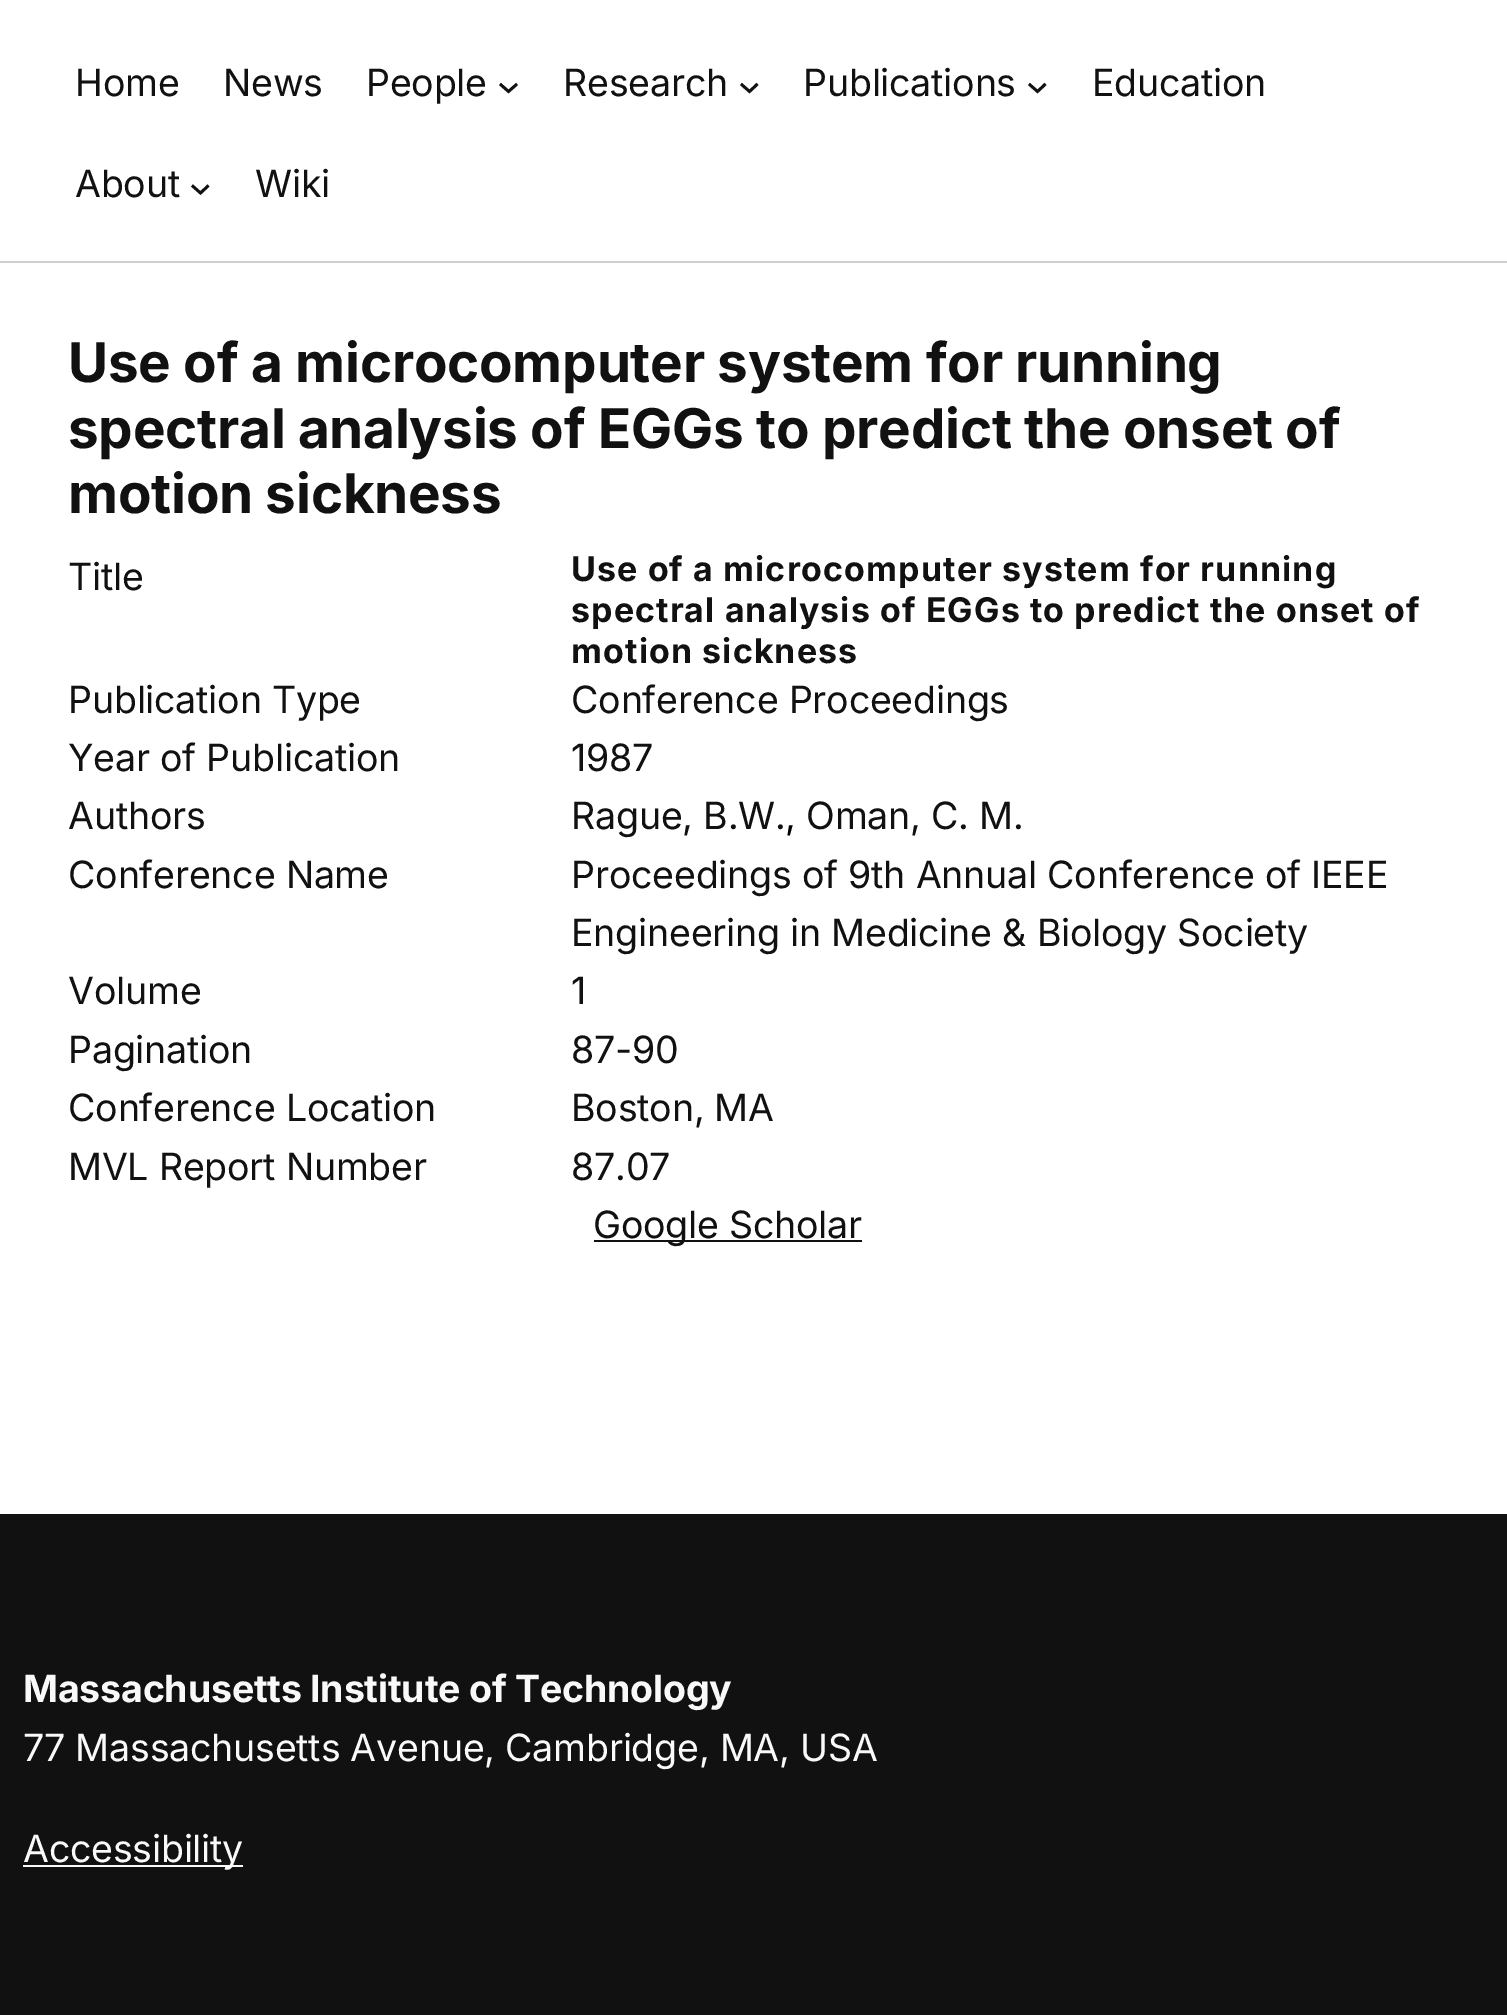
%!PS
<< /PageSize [1507 2015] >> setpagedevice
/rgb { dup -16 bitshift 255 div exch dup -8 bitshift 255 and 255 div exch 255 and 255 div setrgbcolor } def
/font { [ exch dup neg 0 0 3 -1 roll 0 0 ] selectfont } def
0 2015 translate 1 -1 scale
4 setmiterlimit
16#FFFFFF rgb
0 0 1507 2015 rectfill
16#CFCFCF rgb
0 261 1507 2 rectfill
/Inter-Regular 37.6 font
16#111111 rgb
75 96 moveto -0.25 0 (Home) ashow
223 96 moveto -0.25 0 (News) ashow
366 96 moveto -0.25 0 (People) ashow
2.8 setlinewidth
500 84 moveto 508.5 91.5 lineto 517 84 lineto stroke
563 96 moveto -0.25 0 (Research) ashow
741 84 moveto 749.5 91.5 lineto 757.5 84 lineto stroke
803 96 moveto -0.25 0 (Publications) ashow
1029 84 moveto 1037.5 91.5 lineto 1045.5 84 lineto stroke
1092 96 moveto -0.25 0 (Education) ashow
75 197 moveto -0.25 0 (About) ashow
192 185.5 moveto 200.5 193 lineto 208.5 185.5 lineto stroke
255 197 moveto -0.25 0 (Wiki) ashow
/Inter-Bold 54.8 font
68 382 moveto -0.25 0 (Use of a microcomputer system for running) ashow
68 448 moveto -0.25 0 (spectral analysis of EGGs to predict the onset of) ashow
68 513 moveto -0.25 0 (motion sickness) ashow
/Inter-Regular 37.6 font
68 590 moveto -0.25 0 (Title) ashow
/Inter-Bold 33.95 font
571 581 moveto 1.1 0 (Use of a microcomputer system for running) ashow
571 622 moveto 1.1 0 (spectral analysis of EGGs to predict the onset of) ashow
571 663 moveto 1.1 0 (motion sickness) ashow
/Inter-Regular 37.6 font
68 713 moveto -0.25 0 (Publication Type) ashow
571 713 moveto -0.25 0 (Conference Proceedings) ashow
68 771 moveto -0.25 0 (Year of Publication) ashow
571 771 moveto -0.25 0 (1987) ashow
68 829 moveto -0.25 0 (Authors) ashow
571 829 moveto -0.25 0 (Rague, B.W.) ashow
16#000000 rgb
785 829 moveto -0.25 0 (,) ashow
16#111111 rgb
806 829 moveto -0.25 0 (Oman, C. M.) ashow
68 888 moveto -0.25 0 (Conference Name) ashow
571 888 moveto -0.25 0 (Proceedings of 9th Annual Conference of IEEE) ashow
571 946 moveto -0.25 0 (Engineering in Medicine & Biology Society) ashow
68 1004 moveto -0.25 0 (Volume) ashow
571 1004 moveto -0.25 0 (1) ashow
68 1063 moveto -0.25 0 (Pagination) ashow
571 1063 moveto -0.25 0 (87-90) ashow
68 1121 moveto -0.25 0 (Conference Location) ashow
571 1121 moveto -0.25 0 (Boston, MA) ashow
68 1180 moveto -0.25 0 (MVL Report Number) ashow
571 1180 moveto -0.25 0 (87.07) ashow
594 1240 268 2 rectfill
593 1238 moveto -0.25 0 (Google Scholar) ashow
0 1514 1507 501 rectfill
/Inter-Bold 37.6 font
16#F9F9F9 rgb
23 1702 moveto -0.25 0 (Massachusetts Institute of Technology) ashow
/Inter-Regular 37.6 font
23 1761 moveto -0.25 0 (77 Massachusetts Avenue, Cambridge, MA, USA) ashow
23 1865 220 2 rectfill
23 1862 moveto -0.25 0 (Accessibility) ashow
showpage
